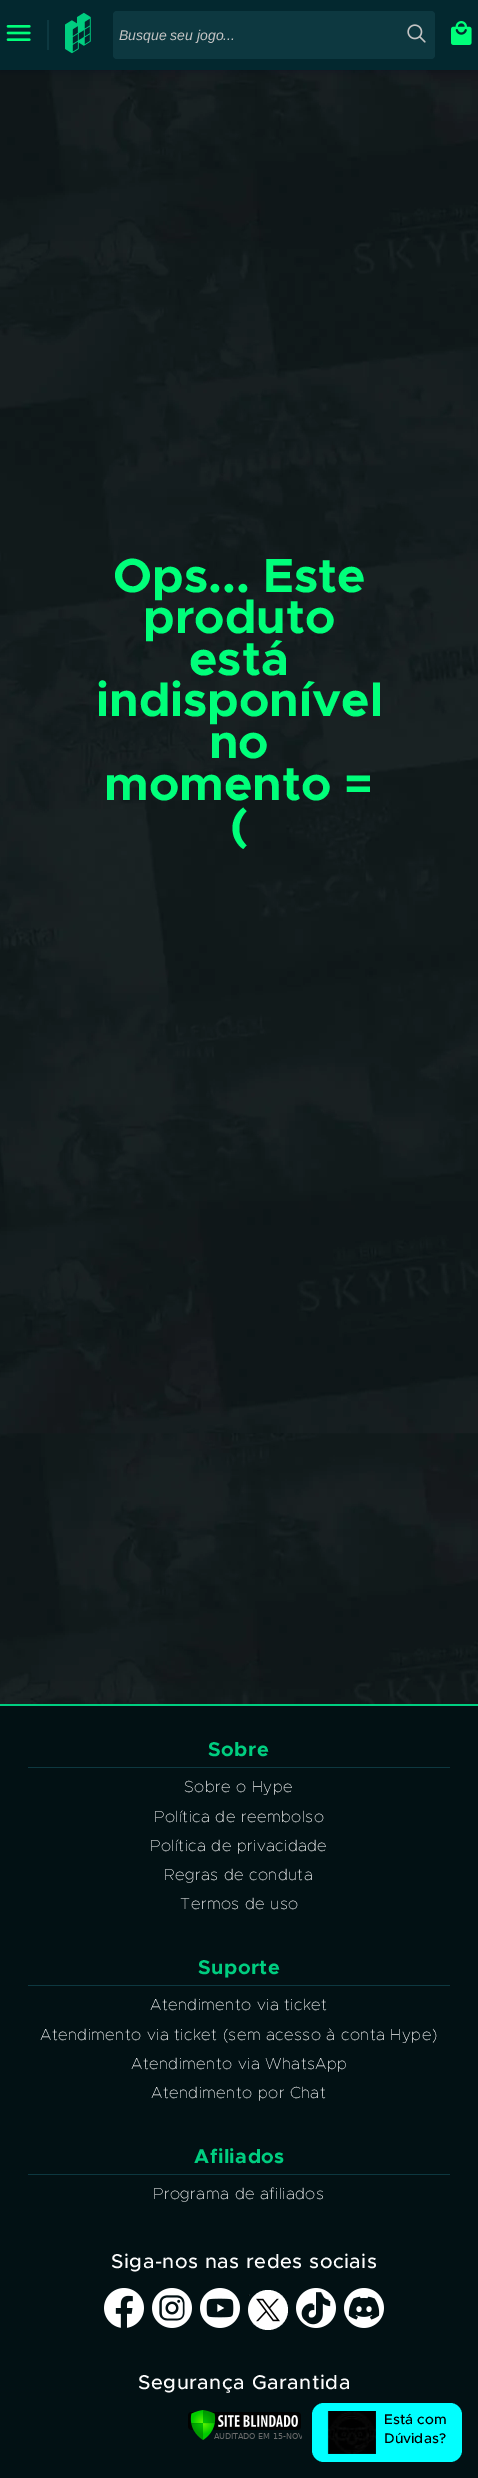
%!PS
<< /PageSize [478 2478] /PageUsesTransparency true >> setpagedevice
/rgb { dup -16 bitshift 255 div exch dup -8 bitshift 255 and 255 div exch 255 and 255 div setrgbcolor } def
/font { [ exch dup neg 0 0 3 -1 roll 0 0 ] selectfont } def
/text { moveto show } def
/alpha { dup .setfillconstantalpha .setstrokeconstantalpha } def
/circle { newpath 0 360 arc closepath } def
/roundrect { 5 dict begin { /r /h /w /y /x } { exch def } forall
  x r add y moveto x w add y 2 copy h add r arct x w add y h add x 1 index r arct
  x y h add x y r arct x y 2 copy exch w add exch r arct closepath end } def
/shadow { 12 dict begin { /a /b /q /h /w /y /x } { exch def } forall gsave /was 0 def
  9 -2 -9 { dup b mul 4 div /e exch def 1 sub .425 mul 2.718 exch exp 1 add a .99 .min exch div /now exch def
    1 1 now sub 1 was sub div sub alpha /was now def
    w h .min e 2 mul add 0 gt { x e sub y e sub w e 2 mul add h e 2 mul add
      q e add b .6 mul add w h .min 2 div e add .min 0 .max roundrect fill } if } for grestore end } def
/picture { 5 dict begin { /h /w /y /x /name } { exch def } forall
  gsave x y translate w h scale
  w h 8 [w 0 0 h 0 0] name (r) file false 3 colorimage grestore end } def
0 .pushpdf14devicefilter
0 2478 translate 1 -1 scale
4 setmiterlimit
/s1 { /LiberationSans-Italic 14 font 16#C4C4C4 rgb } def
/s2 { /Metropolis-Bold 48 font 16#00FF7A rgb } def
/s3 { /Metropolis-Medium 14 font 16#000000 rgb } def
16#FFFFFF rgb
0 0 478 2478 rectfill
(pic5.raw) 0 70 478 1634 picture
16#010020 rgb
0 2 478 70 0 4 0.25 shadow
16#03282F rgb
0 0 478 70 rectfill
(pic1.raw) 6 25 25 16 picture
16#0D3840 rgb
47 20 2 30 rectfill
(pic2.raw) 65 12 26 42 picture
113 11 322 48 4 roundrect fill
s1
(Busque seu jogo...) 119 40 text
(pic3.raw) 407 24 19 19 picture
(pic4.raw) 451 21 21 24 picture
s2
(Ops... Este) 113 592 text
(produto) 143 633 text
(está) 189 675 text
(indisponível) 96 716 text
(no) 209 758 text
(momento =) 104 800 text
(\() 230 841 text
16#021114 rgb
0 1706 478 772 rectfill
16#00CE80 rgb
0 1704 478 2 rectfill
16#0D3840 rgb
28 1767 422 1 rectfill
/Metropolis-Bold 20 font
16#00CE80 rgb
208 1756 moveto 0.5 0 (Sobre) ashow
/Metropolis-Thin 16 font
16#FCFCFC rgb
184 1792 moveto 0.5 0 (Sobre o Hype) ashow
154 1822 moveto 0.5 0 (Política de reembolso) ashow
150 1851 moveto 0.5 0 (Política de privacidade) ashow
164 1880 moveto 0.5 0 (Regras de conduta) ashow
180 1909 moveto 0.5 0 (Termos de uso) ashow
16#0D3840 rgb
28 1985 422 1 rectfill
/Metropolis-Bold 20 font
16#00CE80 rgb
198 1974 moveto 0.5 0 (Suporte) ashow
/Metropolis-Thin 16 font
16#FCFCFC rgb
150 2010 moveto 0.5 0 (Atendimento via ticket) ashow
40 2040 moveto 0.5 0 (Atendimento via ticket \(sem acesso à conta Hype\)) ashow
131 2069 moveto 0.5 0 (Atendimento via WhatsApp) ashow
151 2098 moveto 0.5 0 (Atendimento por Chat) ashow
16#0D3840 rgb
28 2174 422 1 rectfill
/Metropolis-Bold 20 font
16#00CE80 rgb
194 2163 moveto 0.5 0 (Afiliados) ashow
/Metropolis-Thin 16 font
16#FCFCFC rgb
153 2199 moveto 0.5 0 (Programa de afiliados) ashow
/Metropolis-Medium 20 font
111 2268 moveto 0.5 0 (Siga-nos nas redes sociais) ashow
(pic6.raw) 104 2288 40 40 picture
(pic7.raw) 152 2288 40 40 picture
(pic8.raw) 200 2288 40 40 picture
16#FFFFFF rgb
268 2310 20 circle fill
(pic9.raw) 248 2294 32 28 picture
(pic10.raw) 296 2288 40 40 picture
(pic11.raw) 344 2288 40 40 picture
16#FCFCFC rgb
138 2389 moveto 0.5 0 (Segurança Garantida) ashow
(pic12.raw) 188 2410 114 30 picture
16#01FFFF rgb
312 2403 150 59 12 roundrect fill
(pic13.raw) 327 2411 49 43 picture
s3
(Está com) 384 2424 text
(Dúvidas?) 384 2443 text
.poppdf14devicefilter showpage
